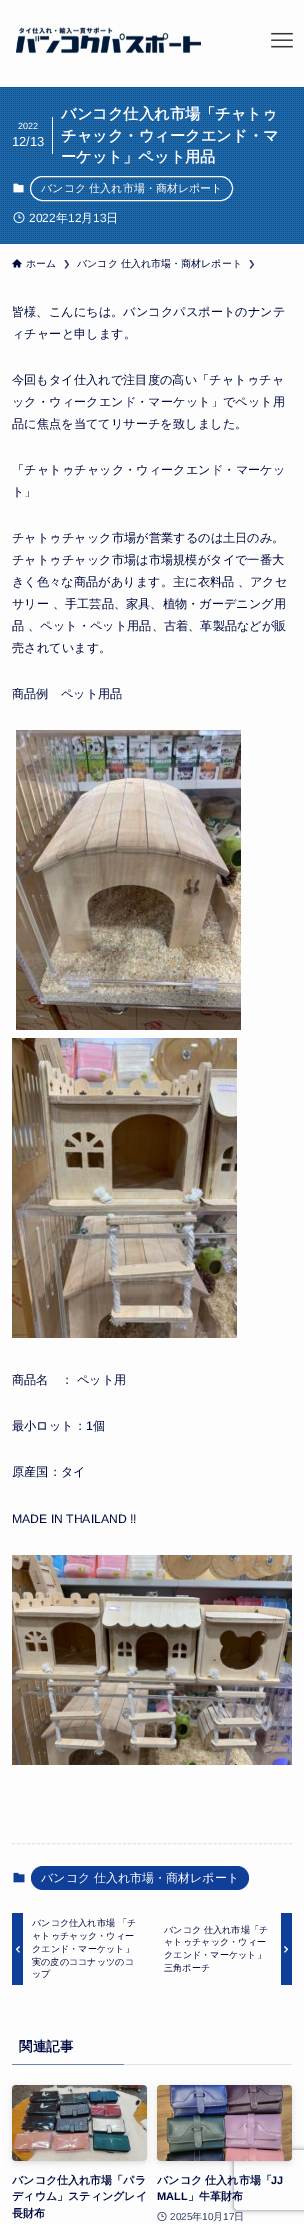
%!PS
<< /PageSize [304 2224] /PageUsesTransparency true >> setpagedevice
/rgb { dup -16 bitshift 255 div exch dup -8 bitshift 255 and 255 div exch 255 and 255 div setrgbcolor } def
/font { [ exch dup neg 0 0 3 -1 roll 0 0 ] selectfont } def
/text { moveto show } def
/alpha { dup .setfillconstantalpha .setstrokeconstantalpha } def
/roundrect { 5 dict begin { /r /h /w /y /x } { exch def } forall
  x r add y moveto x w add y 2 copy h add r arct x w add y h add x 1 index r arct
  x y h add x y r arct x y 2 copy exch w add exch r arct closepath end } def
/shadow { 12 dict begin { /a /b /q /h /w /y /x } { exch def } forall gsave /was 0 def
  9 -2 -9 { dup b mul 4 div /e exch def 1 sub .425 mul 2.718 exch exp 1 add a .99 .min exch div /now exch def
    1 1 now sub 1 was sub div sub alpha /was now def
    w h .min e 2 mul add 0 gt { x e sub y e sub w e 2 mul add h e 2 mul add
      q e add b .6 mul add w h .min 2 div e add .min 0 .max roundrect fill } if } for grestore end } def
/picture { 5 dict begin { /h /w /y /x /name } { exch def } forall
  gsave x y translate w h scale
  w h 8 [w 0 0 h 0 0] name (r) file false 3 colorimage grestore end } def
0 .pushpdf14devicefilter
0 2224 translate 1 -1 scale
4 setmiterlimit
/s1 { /LiberationSans-Regular 9.1 font 16#FFFFFF rgb } def
/s2 { /LiberationSans-Regular 13 font 16#FFFFFF rgb } def
/s3 { /WenQuanYiZenHei-Bold 15.25 font 16#FFFFFF rgb } def
/s4 { /WenQuanYiZenHei-Medium 11 font 16#FFFFFF rgb } def
/s5 { /LiberationSans-Regular 12 font 16#FFFFFF rgb } def
/s6 { /WenQuanYiZenHei-Medium 12 font 16#FFFFFF rgb } def
/s7 { /WenQuanYiZenHei-Medium 10 font 16#000A41 rgb } def
/s8 { /WenQuanYiZenHei-Medium 12.2 font 16#000A41 rgb } def
/s9 { /LiberationSans-Regular 12.2 font 16#000A41 rgb } def
/s10 { /WenQuanYiZenHei-Medium 9.1 font 16#000A41 rgb } def
/s11 { /WenQuanYiZenHei-Bold 13.5 font 16#000A41 rgb } def
/s12 { /WenQuanYiZenHei-Bold 11 font 16#000A41 rgb } def
/s13 { /LiberationSans-Bold 11 font 16#000A41 rgb } def
/s14 { /LiberationSans-Regular 10 font 16#333B67 rgb } def
/s15 { /WenQuanYiZenHei-Medium 10 font 16#333B67 rgb } def
16#FDFDFD rgb
0 0 304 2224 rectfill
16#E2E2E2 rgb
124 2064 168 1 rectfill
(pic1.raw) 16 27 185 27 picture
(pic2.raw) 271 32 22 16 picture
16#1D6DB5 rgb
0 87 304 157 rectfill
(pic3.raw) 0 87 304 157 picture
16#FFFFFF rgb
52 117 1 37 rectfill
s1
(2022) 18 129 text
s2
(12/13) 12 146 text
s3
(バンコク仕入れ市場「チャトゥ) 61 119 text
(チャック・ウィークエンド・マ) 61 141 text
(ーケット」ペット用品) 61 162 text
(pic4.raw) 13 183 11 10 picture
30.5 176.5 202 24 12 roundrect stroke
s4
(バンコク 仕入れ市場・商材レポート) 41 192 text
(pic5.raw) 13 212 12 12 picture
s5
(2022) 29 222 text
s6
(年) 56 222 text
s5
(12) 68 222 text
s6
(月) 81 222 text
s5
(13) 93 222 text
s6
(日) 106 222 text
(pic6.raw) 12 259 10 9 picture
s7
(ホーム) 26 267 text
16#333B67 rgb
66 260 moveto 64.5 260.5 lineto 67.5 264.5 lineto 64.5 268.5 lineto 66 268.5 lineto 69 264.5 lineto closepath fill
s7
(バンコク 仕入れ市場・商材レポート) 77 267 text
16#333B67 rgb
251 260 moveto 249.5 260.5 lineto 252.5 264.5 lineto 249.5 268.5 lineto 251 268.5 lineto 254 264.5 lineto closepath fill
s8
(皆様、こんにちは。バンコクパスポートのナンテ) 12 316 text
(ィチャーと申します。) 12 338 text
(今回もタイ仕入れで注目度の高い「チャトゥチャ) 12 384 text
(ック・ウィークエンド・マーケット」でペット用) 12 406 text
(品に焦点を当ててリサーチを致しました。) 12 428 text
(「チャトゥチャック・ウィークエンド・マーケッ) 12 474 text
(ト」) 12 496 text
(チャトゥチャック市場が営業するのは土日のみ。) 12 542 text
(チャトゥチャック市場は市場規模がタイで一番大) 12 564 text
(きく色々な商品があります。主に衣料品 、アクセ) 12 586 text
(サリー 、手工芸品、家具、植物・ガーデニング用) 12 608 text
(品 、ペット・ペット用品、古着、革製品などが販) 12 630 text
(売されています。) 12 652 text
(商品例　ペット用品) 12 698 text
(pic7.raw) 16 730 225 300 picture
(pic8.raw) 12 1038 225 300 picture
(商品名　： ペット用) 12 1384 text
(最小ロット：) 12 1430 text
s9
(1) 86 1430 text
s8
(個) 93 1430 text
(原産国：タイ) 12 1476 text
s9
(MADE IN THAILAND !!) 12 1523 text
(pic9.raw) 12 1555 280 210 picture
16#E2E2E2 rgb
[3 2.04] 0 setdash
12 1843.5 moveto 292 1843.5 lineto stroke
(pic10.raw) 13 1872 12 11 picture
16#103F99 rgb
31 1866 218 24 12 roundrect fill
s6
(バンコク 仕入れ市場・商材レポート) 41 1882 text
16#103F99 rgb
12 1913 11 72 rectfill
16#FFFFFF rgb
16.5 1948.5 moveto 20 1952 lineto 19 1952.5 lineto 16 1949.5 lineto closepath fill
19 1946 moveto 20 1947 lineto 16.5 1950 lineto 16 1949.5 lineto closepath fill
s10
(バンコク仕入れ市場 「チ) 32 1926 text
(ャトゥチャック・ウィー) 32 1939 text
(クエンド・マーケット」) 32 1952 text
(実の皮のココナッツのコ) 32 1965 text
(ップ) 32 1977 text
16#103F99 rgb
281 1913 11 72 rectfill
s10
(バンコク 仕入れ市場「チ) 164 1933 text
(ャトゥチャック・ウィー) 164 1945 text
(クエンド・マーケット」) 164 1958 text
(三角ポーチ) 164 1971 text
16#FFFFFF rgb
284 1947 moveto 285 1946 lineto 288 1949.5 lineto 287.5 1950 lineto closepath fill
284 1952 moveto 287.5 1948.5 lineto 288 1949.5 lineto 285 1952.5 lineto closepath fill
s11
(関連記事) 19 2051 text
16#6C83B0 rgb
12 2064 112 1 rectfill
16#000000 rgb
16 2093 127 68 0 2 0.1 shadow
12 2087 135 76 4 4 0.1 shadow
(pic11.raw) 12 2085 135 76 picture
s12
(バンコク仕入れ市場「パラ) 12 2184 text
(ディウム」スティングレイ) 12 2200 text
(長財布) 12 2217 text
16#000000 rgb
161 2093 127 68 0 2 0.1 shadow
157 2087 135 76 4 4 0.1 shadow
gsave
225 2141 moveto 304 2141 lineto 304 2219 lineto 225 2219 lineto closepath 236 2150 moveto 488 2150 lineto 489 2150 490 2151 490 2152 curveto 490 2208 lineto 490 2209 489 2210 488 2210 curveto 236 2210 lineto 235 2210 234 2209 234 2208 curveto 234 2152 lineto 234 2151 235 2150 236 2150 curveto closepath eoclip newpath
16#808080 rgb
234 2150 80 60 2 2.5 1 shadow
grestore
(pic12.raw) 157 2085 135 76 picture
s12
(バンコク 仕入れ市場「) 157 2184 text
s13
(JJ) 271 2184 text
(MALL) 157 2200 text
s12
(」牛革財布) 188 2200 text
(pic13.raw) 157 2211 10 11 picture
s14
(2025) 170 2220 text
s15
(年) 192 2220 text
s14
(10) 202 2220 text
s15
(月) 213 2220 text
s14
(17) 223 2220 text
s15
(日) 234 2220 text
.poppdf14devicefilter showpage
